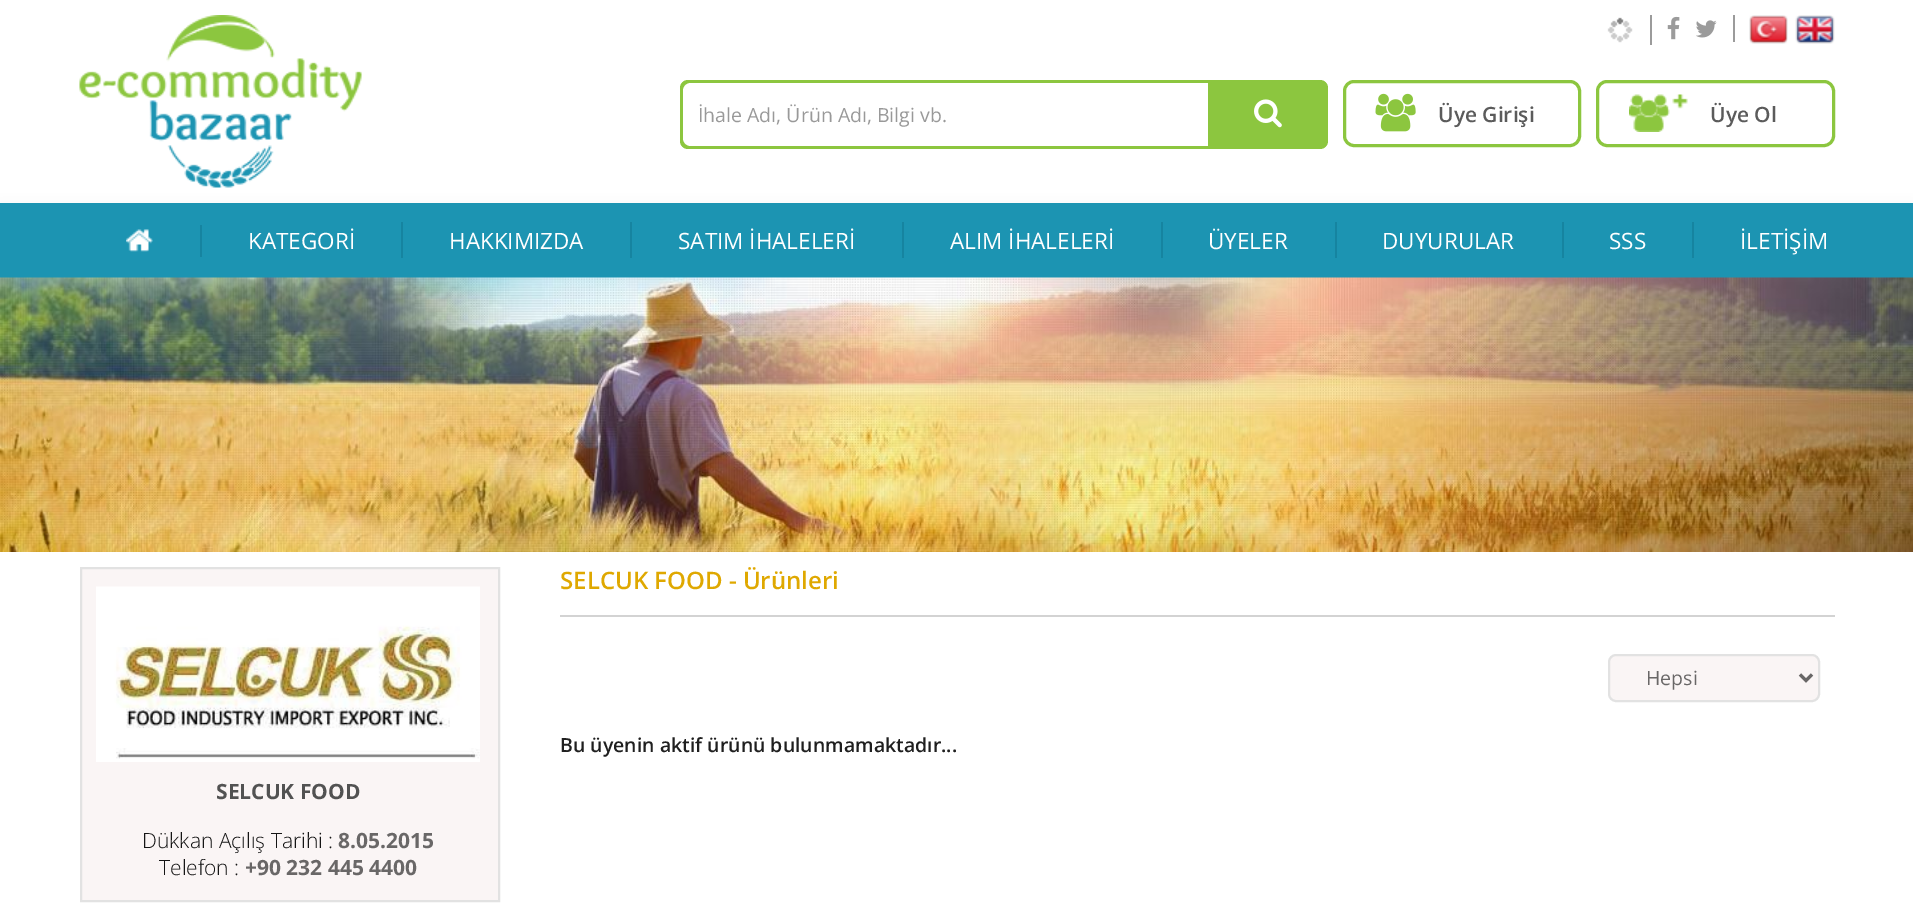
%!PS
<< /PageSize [1913 910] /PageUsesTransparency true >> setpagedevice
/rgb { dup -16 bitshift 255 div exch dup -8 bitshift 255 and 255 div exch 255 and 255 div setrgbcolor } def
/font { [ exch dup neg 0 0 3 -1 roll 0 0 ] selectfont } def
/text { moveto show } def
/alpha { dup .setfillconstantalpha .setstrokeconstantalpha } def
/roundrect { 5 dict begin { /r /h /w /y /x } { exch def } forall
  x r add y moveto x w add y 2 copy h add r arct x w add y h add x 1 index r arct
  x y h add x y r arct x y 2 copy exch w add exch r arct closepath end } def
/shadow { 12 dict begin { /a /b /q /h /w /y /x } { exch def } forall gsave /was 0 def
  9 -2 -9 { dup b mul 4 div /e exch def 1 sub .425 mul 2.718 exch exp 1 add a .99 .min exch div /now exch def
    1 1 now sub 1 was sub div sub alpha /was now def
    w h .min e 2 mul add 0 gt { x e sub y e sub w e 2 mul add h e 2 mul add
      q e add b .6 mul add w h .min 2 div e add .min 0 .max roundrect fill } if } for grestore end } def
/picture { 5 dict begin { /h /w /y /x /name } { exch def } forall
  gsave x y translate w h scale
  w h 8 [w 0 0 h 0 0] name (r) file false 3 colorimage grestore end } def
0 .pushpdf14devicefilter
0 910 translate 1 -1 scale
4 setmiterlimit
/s1 { /OpenSans-Regular 19.5 font 16#999999 rgb } def
/s2 { /OpenSans-SemiBold 21 font 16#5B5B5B rgb } def
/s3 { /OpenSans-Regular 22.5 font 16#FFFFFF rgb } def
/s4 { /OpenSans-SemiBold 24 font 16#DFA800 rgb } def
/s5 { /OpenSans-Regular 19.5 font 16#696767 rgb } def
/s6 { /OpenSans-SemiBold 19.5 font 16#1F1F1F rgb } def
/s7 { /OpenSans-Bold 21 font 16#525252 rgb } def
/s8 { /OpenSans-Light 21 font 16#151515 rgb } def
/s9 { /OpenSans-Bold 21 font 16#696767 rgb } def
16#FFFFFF rgb
0 0 1913 910 rectfill
16#797979 rgb
0 210 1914 75 0 7.5 0.17 shadow
(pic1.raw) 79 15 283 173 picture
16#9B9B9B rgb
1650 15 2 30 rectfill
(pic2.raw) 1607 17 26 26 picture
1733 15 2 27 rectfill
(pic3.raw) 1667 16 13 24 picture
(pic4.raw) 1696 20 21 18 picture
(pic5.raw) 1749 15 39 29 picture
(pic6.raw) 1795 15 40 29 picture
16#8CC63F rgb
680 80 648 69 8 roundrect fill
16#FFFFFF rgb
691 83 moveto 1208 83 lineto 1208 146 lineto 691 146 lineto 686.5 146 683 142.5 683 138 curveto 683 91 lineto 683 86.5 686.5 83 691 83 curveto closepath fill
s1
(İhale Adı, Ürün Adı, Bilgi vb.) 698 122 text
(pic7.raw) 1254 99 28 29 picture
16#8CC63F rgb
3 setlinewidth
1344.5 81.5 235 64 9.5 roundrect stroke
(pic8.raw) 1375 93 41 39 picture
s2
(Üye Girişi) 1438 122 text
16#8CC63F rgb
1597.5 81.5 236 64 9.5 roundrect stroke
(pic9.raw) 1629 94 59 38 picture
s2
(Üye Ol) 1710 122 text
16#1C94B2 rgb
0 203 1913 75 rectfill
16#1684A0 rgb
200 225 2 32 rectfill
(pic10.raw) 126 229 27 23 picture
401 222 2 36 rectfill
s3
(KATEGORİ) 248 249 text
16#1684A0 rgb
630 222 2 36 rectfill
s3
(HAKKIMIZDA) 449 249 text
16#1684A0 rgb
902 222 2 36 rectfill
s3
(SATIM İHALELERİ) 678 249 text
16#1684A0 rgb
1161 222 2 36 rectfill
s3
(ALIM İHALELERİ) 950 249 text
16#1684A0 rgb
1335 222 2 36 rectfill
s3
(ÜYELER) 1208 249 text
16#1684A0 rgb
1562 222 2 36 rectfill
s3
(DUYURULAR) 1382 249 text
16#1684A0 rgb
1692 222 2 36 rectfill
s3
(SSS) 1609 249 text
(İLETİŞİM) 1740 249 text
(pic11.raw) 0 277 1913 275 picture
16#D3D3D3 rgb
560 615 1275 2 rectfill
s4
(SELCUK FOOD - Ürünleri) 560 589 text
16#FAF5F5 rgb
1609 655 210 46 7 roundrect gsave fill grestore
16#E2E2E2 rgb
2 setlinewidth
stroke
16#696767 rgb
3 setlinewidth
1800 674.5 moveto 1806 680.5 lineto 1812 674.5 lineto stroke
s5
(Hepsi) 1646 685 text
s6
(Bu üyenin aktif ürünü bulunmamaktadır...) 560 752 text
16#FAF5F5 rgb
81 568 moveto 499 568 lineto 499 901 lineto 81 901 lineto closepath gsave fill grestore
16#E2E2E2 rgb
2 setlinewidth
stroke
(pic12.raw) 96 586 384 176 picture
s7
(SELCUK FOOD) 216 799 text
s8
(Dükkan Açılış Tarihi :) 142 848 text
s9
(8.05.2015) 338 848 text
s8
(Telefon :) 159 875 text
s9
(+90 232 445 4400) 245 875 text
.poppdf14devicefilter showpage
